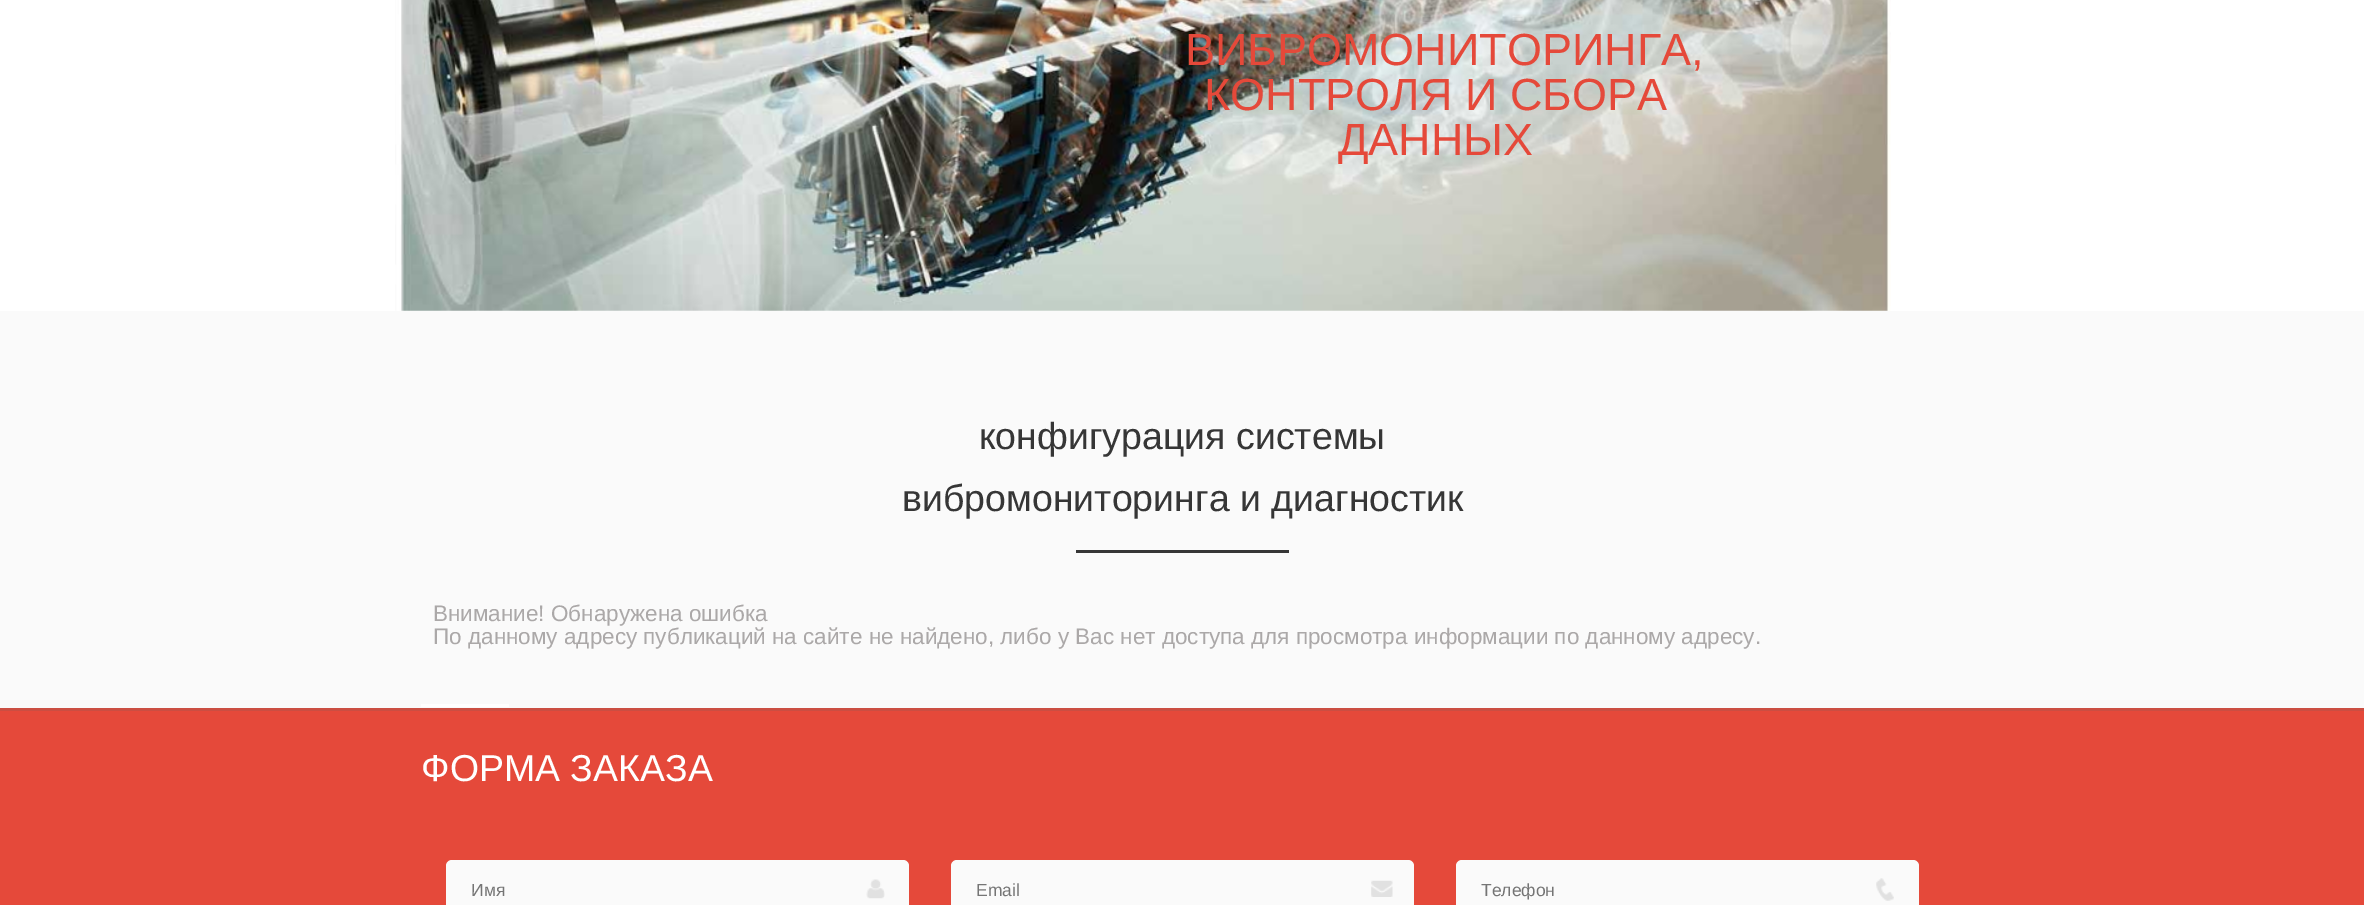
%!PS
<< /PageSize [2364 905] >> setpagedevice
/rgb { dup -16 bitshift 255 div exch dup -8 bitshift 255 and 255 div exch 255 and 255 div setrgbcolor } def
/font { [ exch dup neg 0 0 3 -1 roll 0 0 ] selectfont } def
/text { moveto show } def
/roundrect { 5 dict begin { /r /h /w /y /x } { exch def } forall
  x r add y moveto x w add y 2 copy h add r arct x w add y h add x 1 index r arct
  x y h add x y r arct x y 2 copy exch w add exch r arct closepath end } def
/picture { 5 dict begin { /h /w /y /x /name } { exch def } forall
  gsave x y translate w h scale
  w h 8 [w 0 0 h 0 0] name (r) file false 3 colorimage grestore end } def
0 905 translate 1 -1 scale
4 setmiterlimit
/s1 { /LiberationSans-Regular 45 font 16#E5493A rgb } def
/s2 { /LiberationSans-Regular 37.5 font 16#363636 rgb } def
/s3 { /LiberationSans-Regular 22.5 font 16#ABA8A8 rgb } def
/s4 { /LiberationSans-Regular 37.5 font 16#FFFFFF rgb } def
/s5 { /LiberationSans-Regular 17.5 font 16#757575 rgb } def
16#FFFFFF rgb
0 0 2364 905 rectfill
(pic1.raw) 395 0 1496 311 picture
s1
(ВИБРОМОНИТОРИНГА,) 1185 65 text
(КОНТРОЛЯ И СБОРА) 1204 110 text
(ДАННЫХ) 1338 155 text
16#FAFAFA rgb
0 311 2364 397 rectfill
s2
(конфигурация системы) 979 449 text
(вибромониторинга и диагностик) 902 511 text
1076 550 213 3 rectfill
s3
(Внимание! Обнаружена ошибка) 433 621 text
(По данному адресу публикаций на сайте не найдено, либо у Вас нет доступа для просмотра информации по данному адресу.) 433 644 text
16#E5493A rgb
0 711 2364 194 rectfill
16#CB4E42 rgb
0 708 2364 3 rectfill
16#FFFFFF rgb
421 704 88 3 rectfill
s4
(ФОРМА ЗАКАЗА) 421 781 text
16#FAFAFA rgb
446 860 463 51 6 roundrect fill
(pic2.raw) 866 879 19 20 picture
s5
(Имя) 471 896 text
16#FAFAFA rgb
951 860 463 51 6 roundrect fill
(pic3.raw) 1371 880 22 17 picture
s5
(Email) 976 896 text
16#FAFAFA rgb
1456 860 463 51 6 roundrect fill
(pic4.raw) 1876 878 18 23 picture
s5
(Телефон) 1481 896 text
showpage
